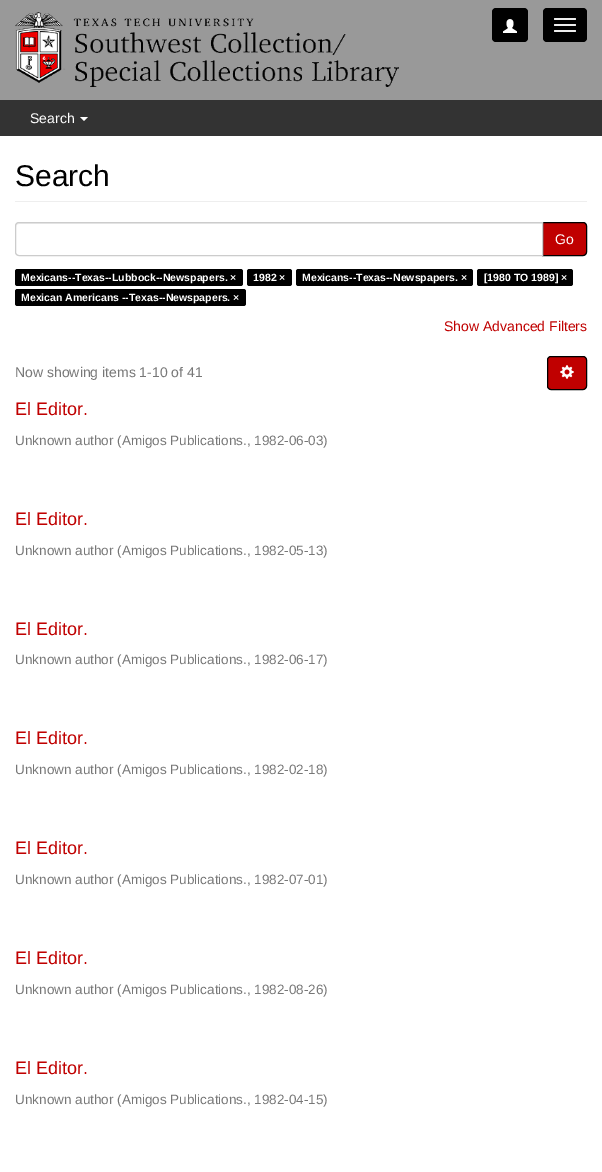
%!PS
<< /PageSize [602 1172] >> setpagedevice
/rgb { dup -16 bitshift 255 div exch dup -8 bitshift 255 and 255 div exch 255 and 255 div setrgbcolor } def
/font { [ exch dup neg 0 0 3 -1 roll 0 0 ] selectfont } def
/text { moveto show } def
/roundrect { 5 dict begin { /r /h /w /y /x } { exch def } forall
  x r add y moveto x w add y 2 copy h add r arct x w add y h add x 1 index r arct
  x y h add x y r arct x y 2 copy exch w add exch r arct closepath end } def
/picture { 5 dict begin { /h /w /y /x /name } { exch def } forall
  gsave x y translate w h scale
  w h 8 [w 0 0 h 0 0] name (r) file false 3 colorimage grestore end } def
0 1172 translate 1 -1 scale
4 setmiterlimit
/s1 { /LiberationSans-Regular 14 font 16#FFFFFF rgb } def
/s2 { /LiberationSans-Regular 30 font 16#000000 rgb } def
/s3 { /LiberationSans-Bold 10.5 font 16#FFFFFF rgb } def
/s4 { /LiberationSans-Regular 14 font 16#C00000 rgb } def
/s5 { /LiberationSans-Regular 14 font 16#777777 rgb } def
/s6 { /LiberationSans-Regular 18 font 16#C00000 rgb } def
/s7 { /LiberationSans-Regular 13.5 font 16#777777 rgb } def
16#333333 rgb
0 0 602 1172 rectfill
16#999999 rgb
0 0 602 100 rectfill
(pic1.raw) 15 12 384 75 picture
16#000000 rgb
492 8 36 34 4 roundrect fill
(pic2.raw) 503 19 14 14 picture
543 8 44 34 4 roundrect fill
16#EEEEEE rgb
554 18 22 2 1 roundrect fill
554 24 22 2 1 roundrect fill
554 30 22 2 1 roundrect fill
16#FFFFFF rgb
0 136 602 1036 rectfill
s1
(Search) 30 123 text
80 117 moveto 88 117 lineto 84 121 lineto closepath fill
16#EEEEEE rgb
15 201 572 1 rectfill
s2
(Search) 15 186 text
16#C00000 rgb
542.5 222.5 moveto 583 222.5 lineto 585 222.5 586.5 224 586.5 226 curveto 586.5 252 lineto 586.5 254 585 255.5 583 255.5 curveto 542.5 255.5 lineto closepath gsave fill grestore
16#000000 rgb
stroke
16#FFFFFF rgb
19 222 moveto 543 222 lineto 543 256 lineto 19 256 lineto 17 256 15 254 15 252 curveto 15 226 lineto 15 224 17 222 19 222 curveto closepath fill
16#ECECEC rgb
19 224 moveto 542 224 lineto 542 223 lineto 19 223 lineto 17 223 16 225 16 227 curveto 16 225 17 224 19 224 curveto closepath fill
16#CCCCCC rgb
19 222.5 moveto 542.5 222.5 lineto 542.5 255.5 lineto 19 255.5 lineto 17 255.5 15.5 254 15.5 252 curveto 15.5 226 lineto 15.5 224 17 222.5 19 222.5 curveto closepath stroke
s1
(Go) 555 244 text
16#000000 rgb
15 269 228 17 2.5 roundrect fill
s3
(Mexicans--Texas--Lubbock--Newspapers. ×) 21 281 text
16#000000 rgb
247 269 45 17 2.5 roundrect fill
s3
(1982 ×) 253 281 text
16#000000 rgb
296 269 177 17 2.5 roundrect fill
s3
(Mexicans--Texas--Newspapers. ×) 302 281 text
16#000000 rgb
477 269 96 17 2.5 roundrect fill
s3
([1980 TO 1989] ×) 484 281 text
16#000000 rgb
15 289 231 17 2.5 roundrect fill
s3
(Mexican Americans --Texas--Newspapers. ×) 21 301 text
s4
(Show Advanced Filters) 444 331 text
s5
(Now showing items 1-10 of 41) 15 377 text
16#C00000 rgb
547.5 356.5 39 33 3.5 roundrect gsave fill grestore
16#000000 rgb
stroke
(pic3.raw) 560 365 14 14 picture
s6
(El Editor.) 15 415 text
s7
(Unknown author \(Amigos Publications., 1982-06-03\)) 15 445 text
s6
(El Editor.) 15 525 text
s7
(Unknown author \(Amigos Publications., 1982-05-13\)) 15 555 text
s6
(El Editor.) 15 635 text
s7
(Unknown author \(Amigos Publications., 1982-06-17\)) 15 664 text
s6
(El Editor.) 15 744 text
s7
(Unknown author \(Amigos Publications., 1982-02-18\)) 15 774 text
s6
(El Editor.) 15 854 text
s7
(Unknown author \(Amigos Publications., 1982-07-01\)) 15 884 text
s6
(El Editor.) 15 964 text
s7
(Unknown author \(Amigos Publications., 1982-08-26\)) 15 994 text
s6
(El Editor.) 15 1074 text
s7
(Unknown author \(Amigos Publications., 1982-04-15\)) 15 1104 text
showpage
